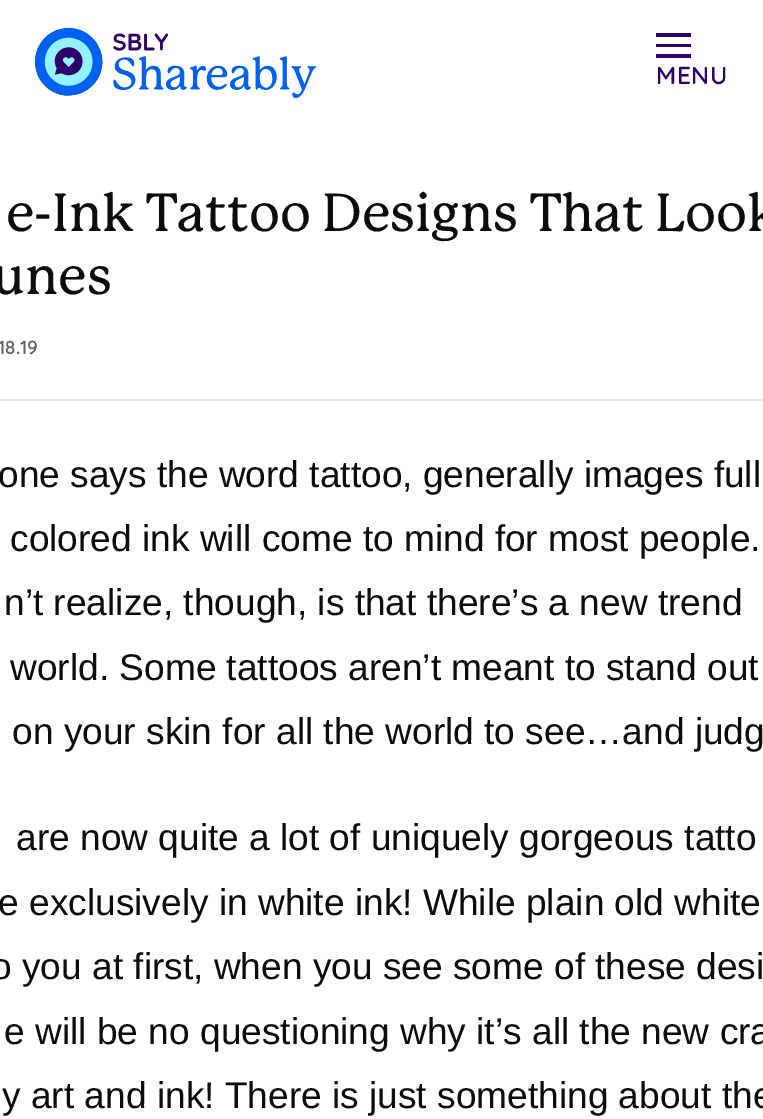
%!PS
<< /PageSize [763 1119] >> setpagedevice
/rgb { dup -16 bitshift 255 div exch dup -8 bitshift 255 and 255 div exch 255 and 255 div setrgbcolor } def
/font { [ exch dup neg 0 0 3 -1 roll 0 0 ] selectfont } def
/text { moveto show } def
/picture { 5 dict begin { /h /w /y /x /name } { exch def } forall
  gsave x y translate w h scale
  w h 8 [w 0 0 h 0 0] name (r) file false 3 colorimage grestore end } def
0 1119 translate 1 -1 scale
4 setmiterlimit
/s1 { /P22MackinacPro-Medium 52.5 font 16#0C0C0C rgb } def
/s2 { /Quicksand-SemiBold 19 font 16#636363 rgb } def
/s3 { /LiberationSans-Regular 37.1 font 16#0C0C0C rgb } def
16#FFFFFF rgb
0 0 763 1119 rectfill
(pic1.raw) 35 28 281 70 picture
16#2F0066 rgb
656 33 35 4 rectfill
656 44 35 3 rectfill
656 54 35 4 rectfill
/Quicksand-SemiBold 24.5 font
656 84 moveto 0.5 0 (MENU) ashow
s1
(e-Ink Tattoo Designs That Look) 6 231 text
(unes) -8 294 text
s2
(18.19) -2 354 text
16#E6E6E6 rgb
0 399 763 2 rectfill
s3
(one says the word tattoo, generally images full) -2 487 text
(colored ink will come to mind for most people.) 10 551 text
(n’t realize, though, is that there’s a new trend) 4 615 text
(world. Some tattoos aren’t meant to stand out) 10 680 text
(on your skin for all the world to see…and judg) 12 744 text
(are now quite a lot of uniquely gorgeous tatto) 16 850 text
(e exclusively in white ink! While plain old white) -2 915 text
(o you at first, when you see some of these desi) -9 979 text
(e will be no questioning why it’s all the new cra) 4 1044 text
(y art and ink! There is just something about the) 2 1108 text
showpage
